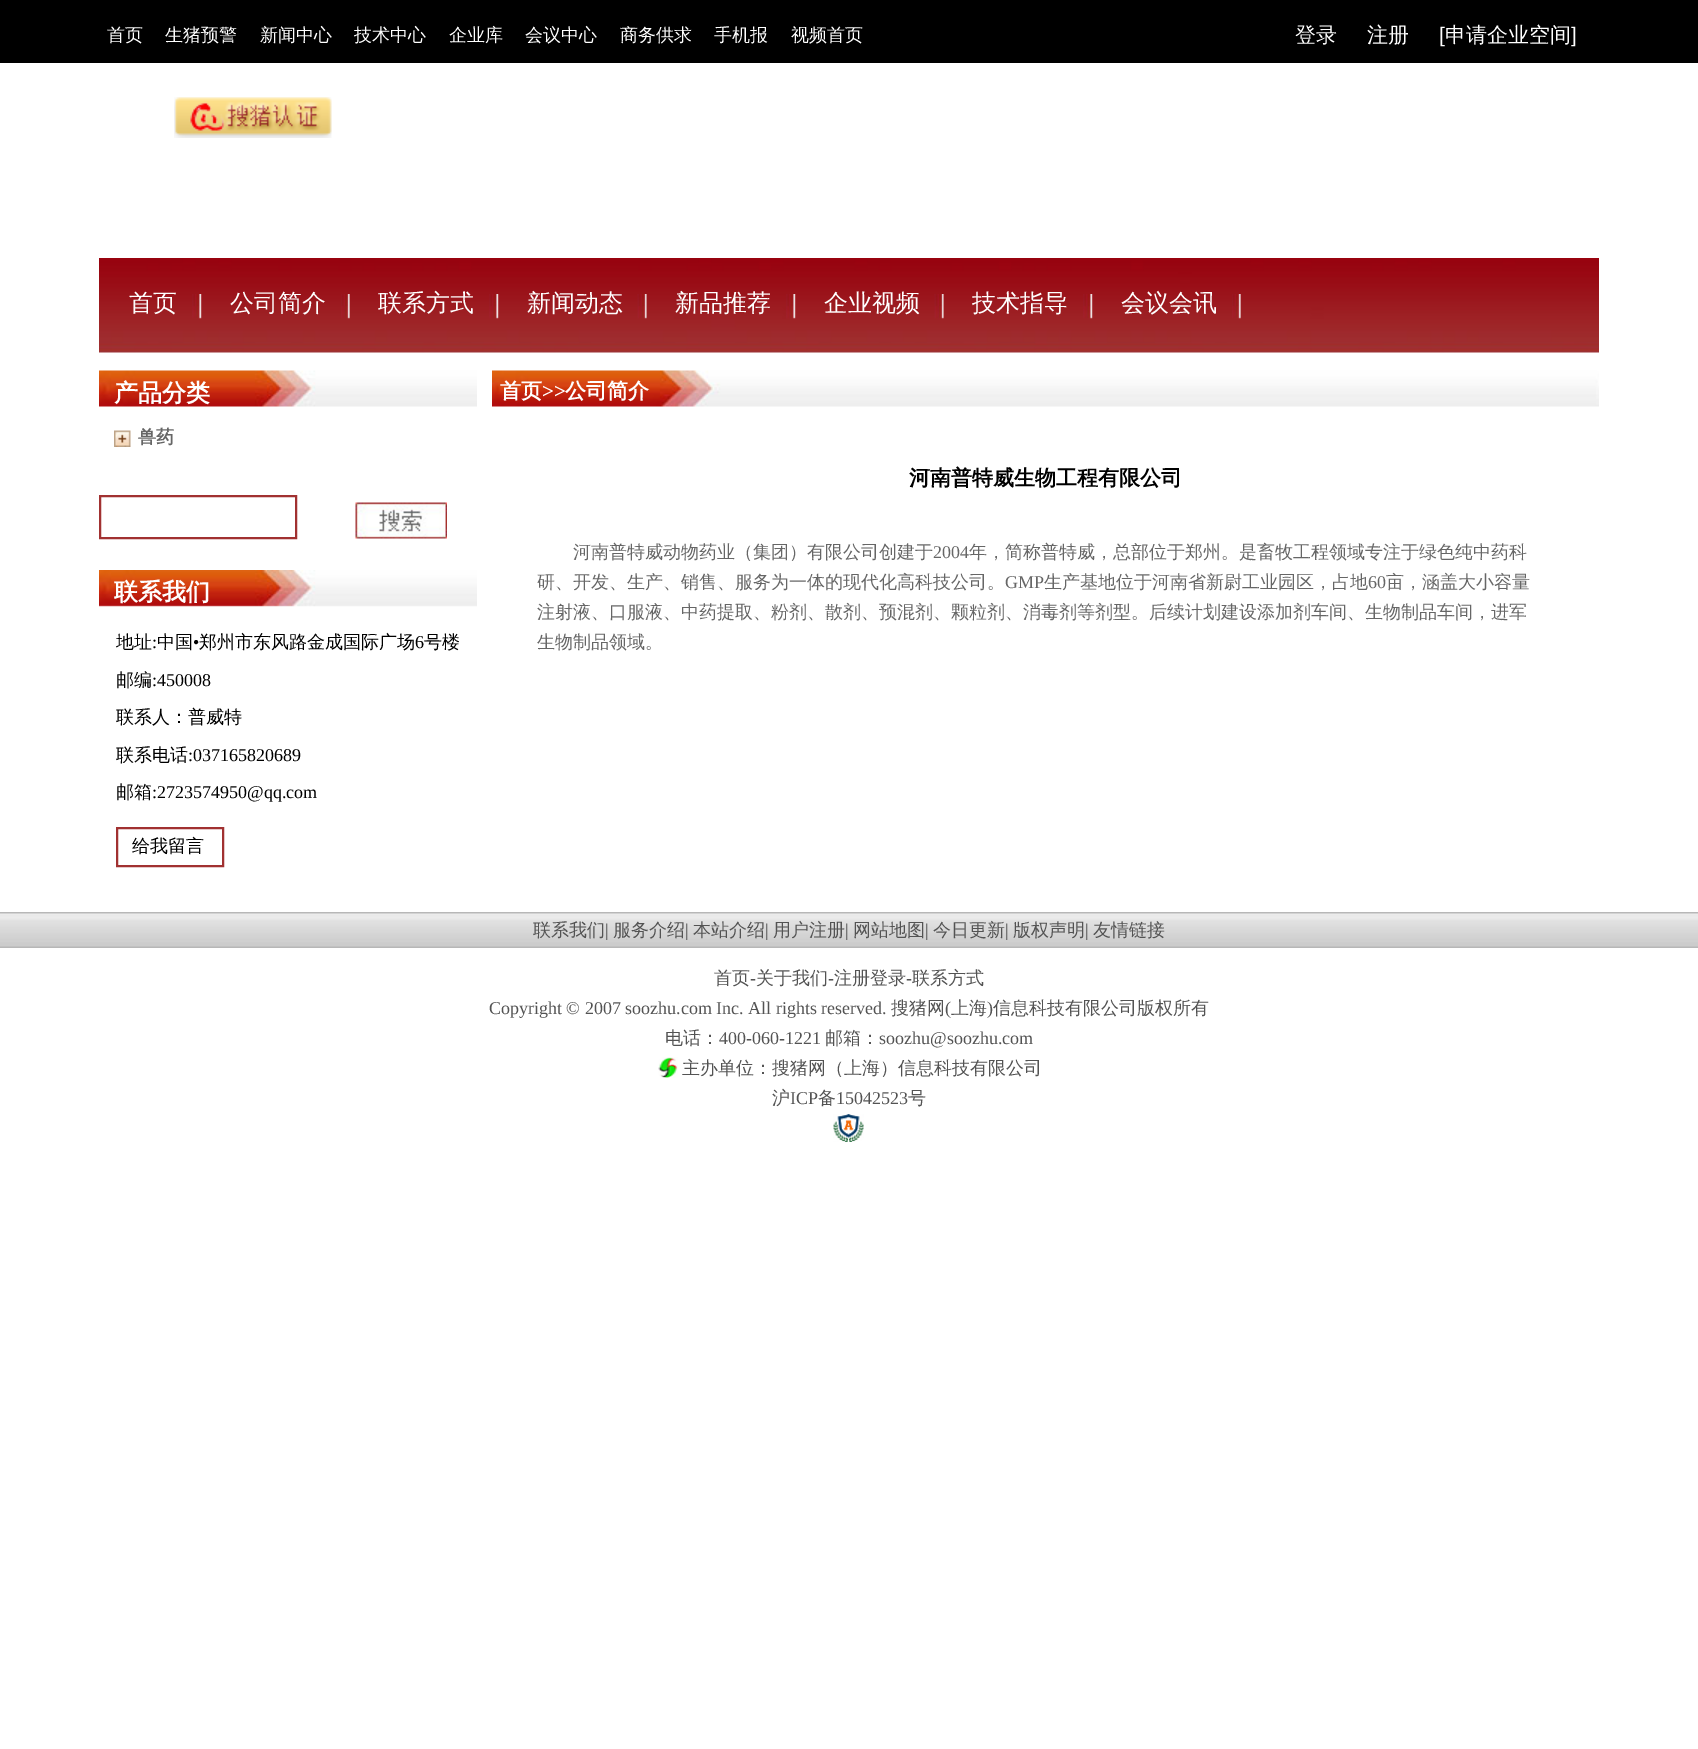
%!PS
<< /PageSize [1698 1749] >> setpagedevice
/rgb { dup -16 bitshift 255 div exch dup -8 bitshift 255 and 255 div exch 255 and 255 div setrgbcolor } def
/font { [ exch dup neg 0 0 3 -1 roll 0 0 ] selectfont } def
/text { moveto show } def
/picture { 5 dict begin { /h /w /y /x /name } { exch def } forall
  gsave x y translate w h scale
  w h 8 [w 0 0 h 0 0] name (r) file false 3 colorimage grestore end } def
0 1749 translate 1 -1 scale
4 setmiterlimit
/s1 { /WenQuanYiZenHei-Medium 18 font 16#FFFFFF rgb } def
/s2 { /WenQuanYiZenHei-Medium 21 font 16#FFFFFF rgb } def
/s3 { /LiberationSans-Regular 21 font 16#FFFFFF rgb } def
/s4 { /WenQuanYiZenHei-Medium 24 font 16#FFFFFF rgb } def
/s5 { /WenQuanYiZenHei-Bold 24 font 16#FFFFFF rgb } def
/s6 { /WenQuanYiZenHei-Bold 18 font 16#666666 rgb } def
/s7 { /WenQuanYiZenHei-Medium 18 font 16#000000 rgb } def
/s8 { /LiberationSerif-Regular 18 font 16#000000 rgb } def
/s9 { /WenQuanYiZenHei-Bold 21 font 16#FFFFFF rgb } def
/s10 { /LiberationSerif-Bold 21 font 16#FFFFFF rgb } def
/s11 { /WenQuanYiZenHei-Bold 21 font 16#000000 rgb } def
/s12 { /WenQuanYiZenHei-Medium 18 font 16#666666 rgb } def
/s13 { /LiberationSerif-Regular 18 font 16#666666 rgb } def
/s14 { /WenQuanYiZenHei-Medium 18 font 16#535353 rgb } def
/s15 { /LiberationSerif-Regular 18 font 16#535353 rgb } def
16#FFFFFF rgb
0 0 1698 1749 rectfill
16#000000 rgb
0 0 1698 63 rectfill
s1
(首页) 107 41 text
(生猪预警) 165 41 text
(新闻中心) 260 41 text
(技术中心) 354 41 text
(企业库) 449 41 text
(会议中心) 525 41 text
(商务供求) 620 41 text
(手机报) 714 41 text
(视频首页) 791 41 text
s2
(登录) 1295 42 text
(注册) 1367 42 text
s3
([) 1439 42 text
s2
(申请企业空间) 1445 42 text
s3
(]) 1571 42 text
(pic1.raw) 174 97 158 41 picture
(pic2.raw) 99 258 1500 95 picture
(pic3.raw) 192 294 10 25 picture
s4
(首页) 129 311 text
(pic4.raw) 341 294 9 25 picture
(公司简介) 230 311 text
(pic3.raw) 489 294 10 25 picture
(联系方式) 378 311 text
(pic5.raw) 637 294 10 25 picture
(新闻动态) 527 311 text
(pic3.raw) 786 294 10 25 picture
(新品推荐) 675 311 text
(pic5.raw) 934 294 10 25 picture
(企业视频) 824 311 text
(pic3.raw) 1083 294 10 25 picture
(技术指导) 972 311 text
(pic4.raw) 1232 294 9 25 picture
(会议会讯) 1121 311 text
(pic6.raw) 99 370 378 37 picture
s5
(产品分类) 114 401 text
(pic7.raw) 114 430 17 17 picture
s6
(兽药) 138 443 text
16#A13131 rgb
2 setlinewidth
100 496 196 42 rectstroke
(pic8.raw) 355 502 92 37 picture
(pic9.raw) 99 570 378 37 picture
s5
(联系我们) 114 600 text
s7
(地址) 116 648 text
s8
(:) 152 648 text
s7
(中国) 157 648 text
s8
(•) 193 648 text
s7
(郑州市东风路金成国际广场) 199 648 text
s8
(6) 415 648 text
s7
(号楼) 424 648 text
(邮编) 116 686 text
s8
(:450008) 152 686 text
s7
(联系人：普威特) 116 723 text
(联系电话) 116 761 text
s8
(:037165820689) 188 761 text
s7
(邮箱) 116 798 text
s8
(:2723574950@qq.com) 152 798 text
16#A13131 rgb
117 828 106 38 rectstroke
s7
(给我留言) 132 852 text
(pic10.raw) 492 370 1107 37 picture
s9
(首页) 500 398 text
s10
(>>) 542 398 text
s9
(公司简介) 565 398 text
s11
(河南普特威生物工程有限公司) 909 485 text
s12
(河南普特威动物药业（集团）有限公司创建于) 573 558 text
s13
(2004) 933 558 text
s12
(年，简称普特威，总部位于郑州。是畜牧工程领域专注于绿色纯中药科) 969 558 text
(研、开发、生产、销售、服务为一体的现代化高科技公司。) 537 588 text
s13
(GMP) 1005 588 text
s12
(生产基地位于河南省新尉工业园区，占地) 1044 588 text
s13
(60) 1368 588 text
s12
(亩，涵盖大小容量) 1386 588 text
(注射液、口服液、中药提取、粉剂、散剂、预混剂、颗粒剂、消毒剂等剂型。后续计划建设添加剂车间、生物制品车间，进军) 537 618 text
(生物制品领域。) 537 648 text
(pic11.raw) 0 912 1698 36 picture
s14
(联系我们) 533 936 text
s15
(|) 605 936 text
s14
(服务介绍) 613 936 text
s15
(|) 685 936 text
s14
(本站介绍) 693 936 text
s15
(|) 765 936 text
s14
(用户注册) 773 936 text
s15
(|) 845 936 text
s14
(网站地图) 853 936 text
s15
(|) 925 936 text
s14
(今日更新) 933 936 text
s15
(|) 1005 936 text
s14
(版权声明) 1013 936 text
s15
(|) 1085 936 text
s14
(友情链接) 1093 936 text
(首页) 714 984 text
s15
(-) 750 984 text
s14
(关于我们) 756 984 text
s15
(-) 828 984 text
s14
(注册登录) 834 984 text
s15
(-) 906 984 text
s14
(联系方式) 912 984 text
s15
(Copyright © 2007 soozhu.com Inc. All rights reserved.) 489 1014 text
s14
(搜猪网) 891 1014 text
s15
(\() 945 1014 text
s14
(上海) 951 1014 text
s15
(\)) 987 1014 text
s14
(信息科技有限公司版权所有) 993 1014 text
(电话：) 665 1044 text
s15
(400-060-1221) 719 1044 text
s14
(邮箱：) 825 1044 text
s15
(soozhu@soozhu.com) 879 1044 text
(pic12.raw) 658 1057 20 21 picture
s14
(主办单位：搜猪网（上海）信息科技有限公司) 682 1074 text
(沪) 772 1104 text
s15
(ICP) 790 1104 text
s14
(备) 818 1104 text
s15
(15042523) 836 1104 text
s14
(号) 908 1104 text
(pic13.raw) 833 1114 31 28 picture
showpage
